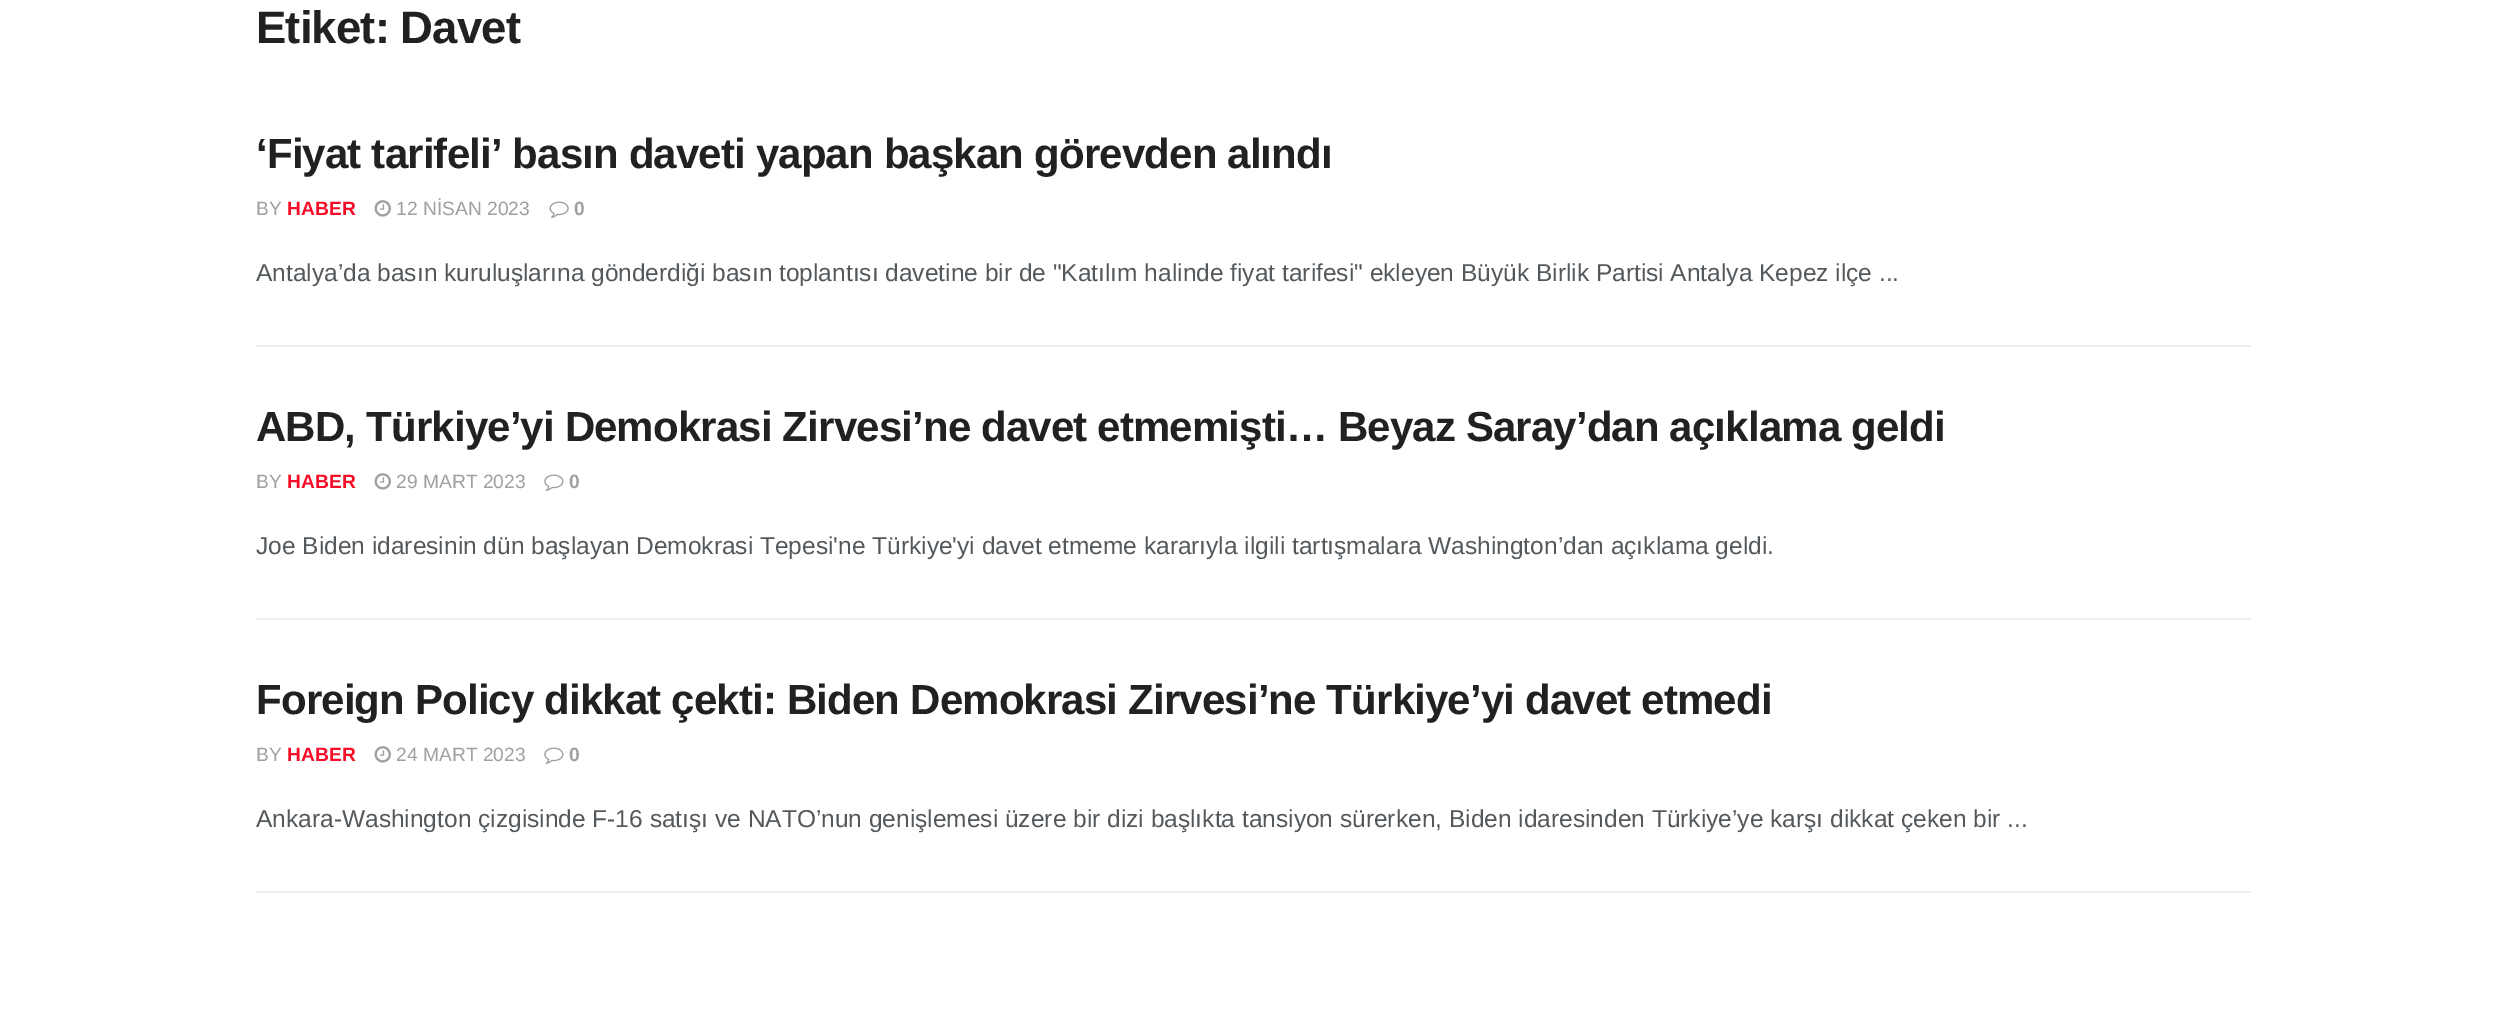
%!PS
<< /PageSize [2505 1034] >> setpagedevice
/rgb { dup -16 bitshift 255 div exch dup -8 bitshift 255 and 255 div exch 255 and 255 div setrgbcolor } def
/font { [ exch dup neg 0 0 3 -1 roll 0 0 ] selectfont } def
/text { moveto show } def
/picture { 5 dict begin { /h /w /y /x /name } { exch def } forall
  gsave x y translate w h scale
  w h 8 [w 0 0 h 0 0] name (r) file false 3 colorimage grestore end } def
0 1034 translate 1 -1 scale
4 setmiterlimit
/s1 { /LiberationSans-Regular 19.25 font 16#A0A0A0 rgb } def
/s2 { /LiberationSans-Bold 19.25 font 16#F70D28 rgb } def
/s3 { /LiberationSans-Bold 19.25 font 16#A0A0A0 rgb } def
/s4 { /LiberationSans-Regular 24.5 font 16#53585C rgb } def
16#FFFFFF rgb
0 0 2505 1034 rectfill
/LiberationSans-Bold 45.5 font
16#212121 rgb
256 43 moveto -0.9 0 (Etiket: Davet) ashow
16#EEEEEE rgb
256 345 1995 2 rectfill
/LiberationSans-Bold 42 font
16#212121 rgb
256 168 moveto -0.85 0 (‘Fiyat tarifeli’ basın daveti yapan başkan görevden alındı) ashow
s1
(BY) 256 215 text
s2
(HABER) 287 215 text
(pic1.raw) 374 200 17 17 picture
s1
(12 NİSAN 2023) 396 215 text
(pic2.raw) 549 201 20 17 picture
s3
(0) 574 215 text
s4
(Antalya’da basın kuruluşlarına gönderdiği basın toplantısı davetine bir de "Katılım halinde fiyat tarifesi" ekleyen Büyük Birlik Partisi Antalya Kepez ilçe ...) 256 281 text
16#EEEEEE rgb
256 618 1995 2 rectfill
/LiberationSans-Bold 42 font
16#212121 rgb
256 441 moveto -0.85 0 (ABD, Türkiye’yi Demokrasi Zirvesi’ne davet etmemişti… Beyaz Saray’dan açıklama geldi) ashow
s1
(BY) 256 488 text
s2
(HABER) 287 488 text
(pic1.raw) 374 473 17 17 picture
s1
(29 MART 2023) 396 488 text
(pic3.raw) 544 474 20 17 picture
s3
(0) 569 488 text
s4
(Joe Biden idaresinin dün başlayan Demokrasi Tepesi'ne Türkiye'yi davet etmeme kararıyla ilgili tartışmalara Washington’dan açıklama geldi.) 256 554 text
16#EEEEEE rgb
256 891 1995 2 rectfill
/LiberationSans-Bold 42 font
16#212121 rgb
256 714 moveto -0.85 0 (Foreign Policy dikkat çekti: Biden Demokrasi Zirvesi’ne Türkiye’yi davet etmedi) ashow
s1
(BY) 256 761 text
s2
(HABER) 287 761 text
(pic1.raw) 374 746 17 17 picture
s1
(24 MART 2023) 396 761 text
(pic3.raw) 544 747 20 17 picture
s3
(0) 569 761 text
s4
(Ankara-Washington çizgisinde F-16 satışı ve NATO’nun genişlemesi üzere bir dizi başlıkta tansiyon sürerken, Biden idaresinden Türkiye’ye karşı dikkat çeken bir ...) 256 827 text
showpage
